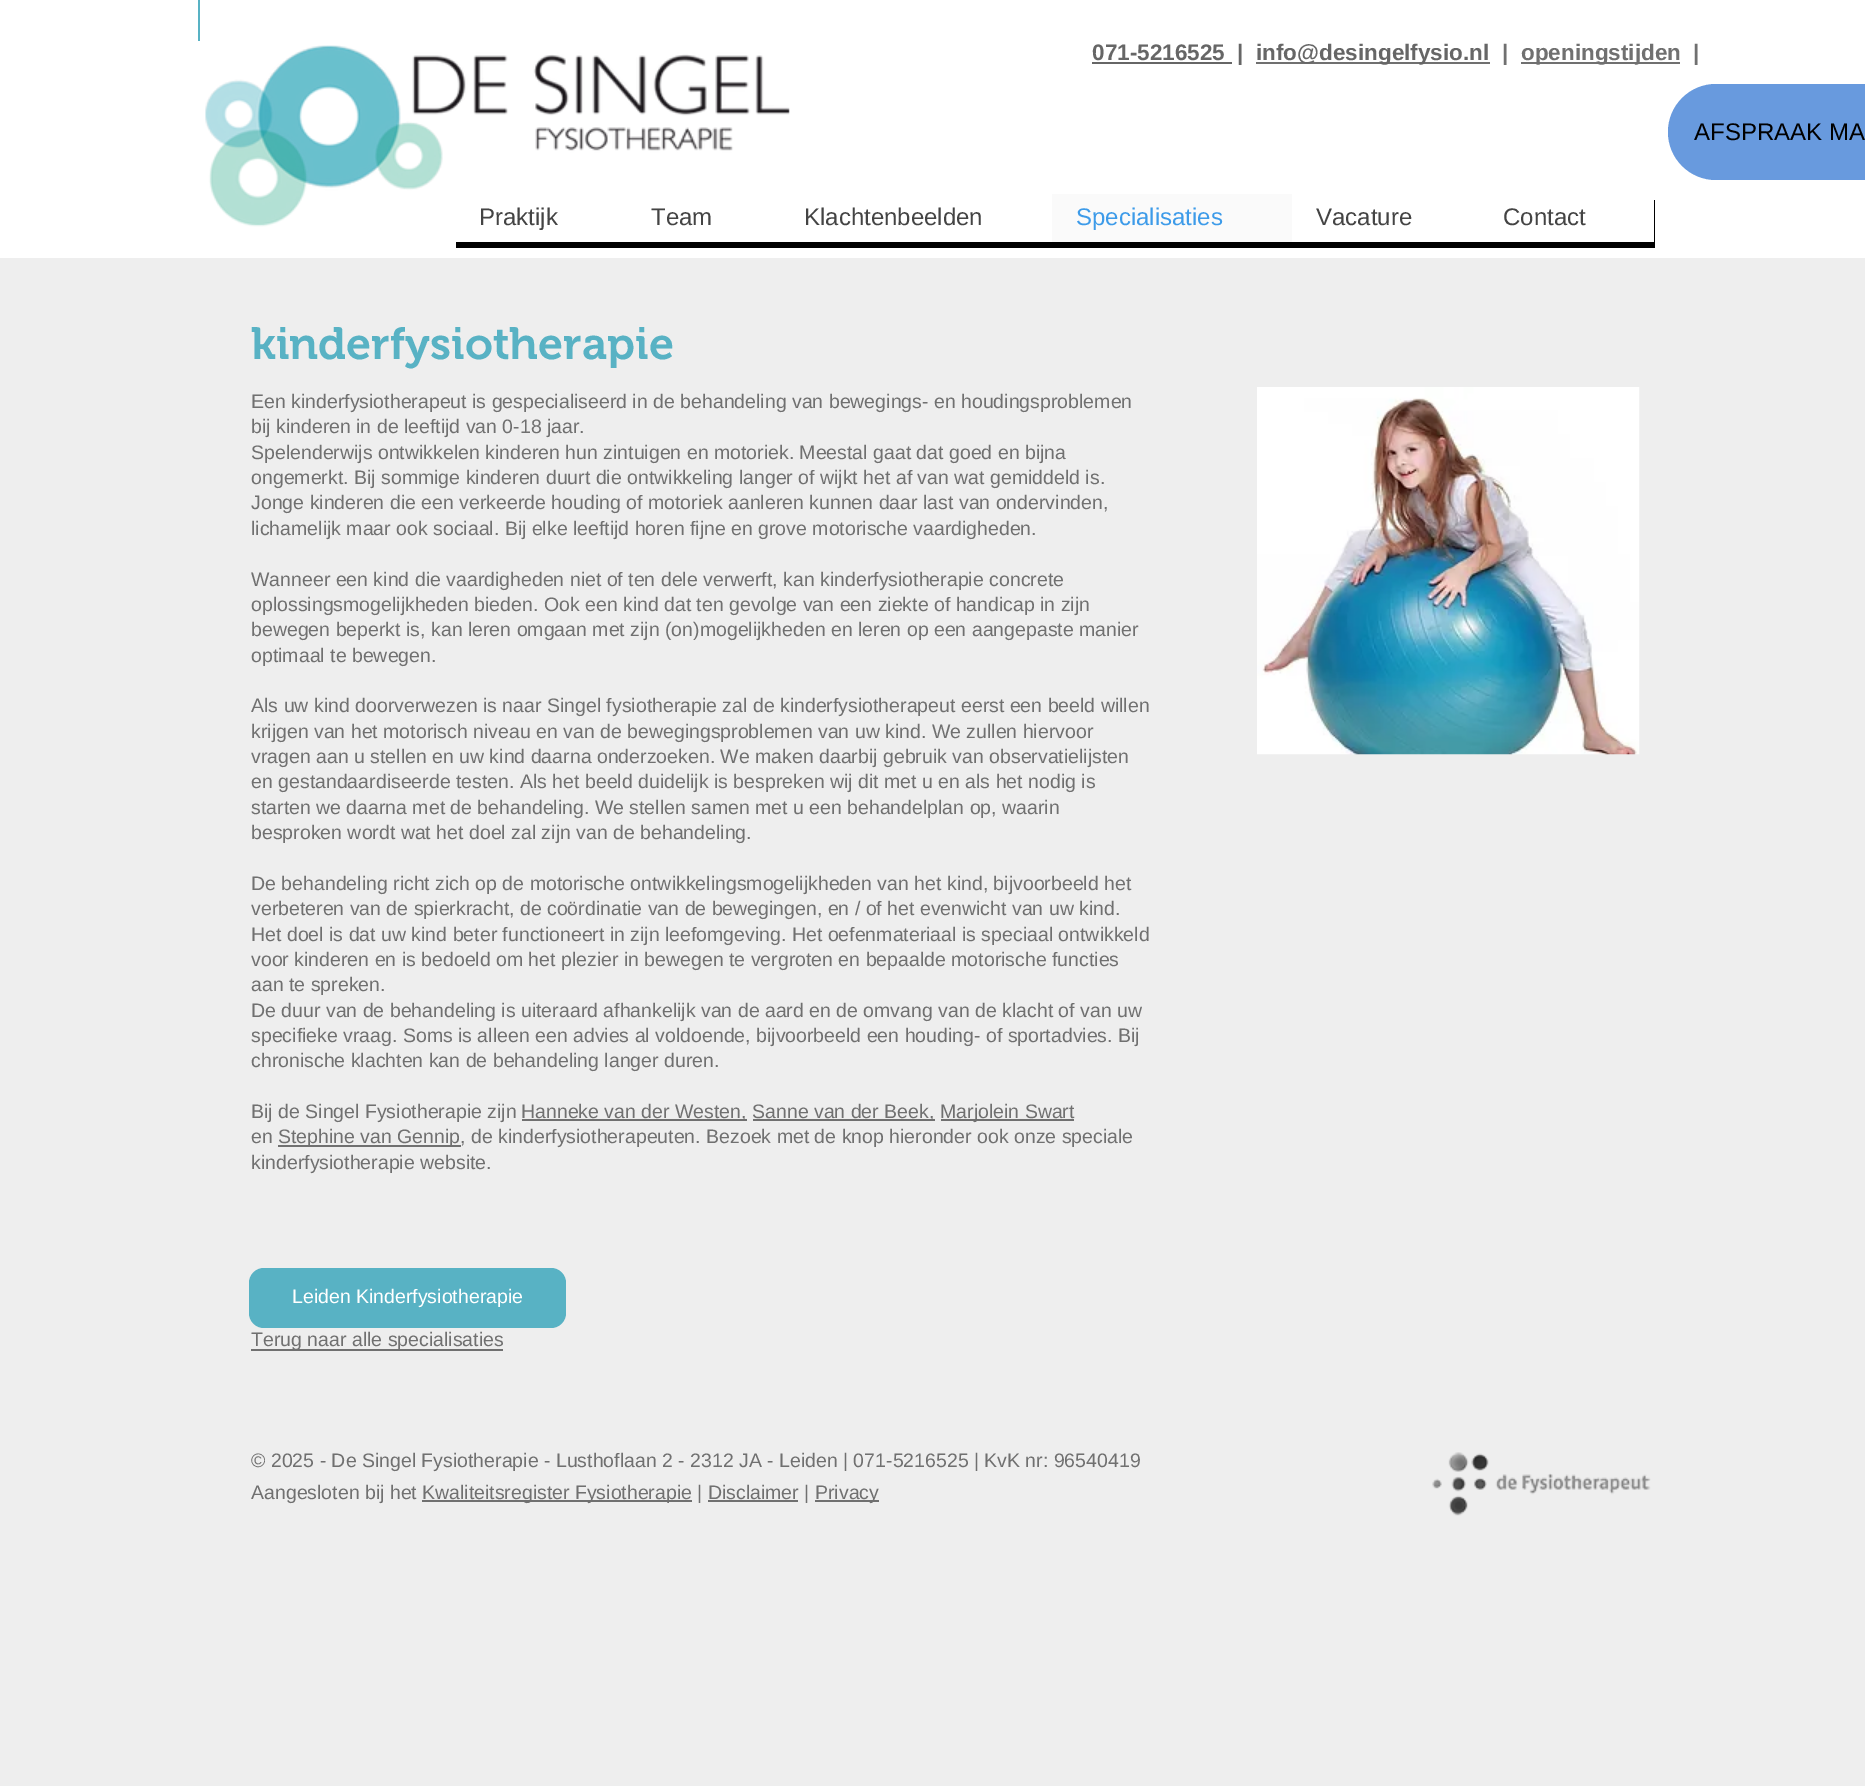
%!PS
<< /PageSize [1865 1786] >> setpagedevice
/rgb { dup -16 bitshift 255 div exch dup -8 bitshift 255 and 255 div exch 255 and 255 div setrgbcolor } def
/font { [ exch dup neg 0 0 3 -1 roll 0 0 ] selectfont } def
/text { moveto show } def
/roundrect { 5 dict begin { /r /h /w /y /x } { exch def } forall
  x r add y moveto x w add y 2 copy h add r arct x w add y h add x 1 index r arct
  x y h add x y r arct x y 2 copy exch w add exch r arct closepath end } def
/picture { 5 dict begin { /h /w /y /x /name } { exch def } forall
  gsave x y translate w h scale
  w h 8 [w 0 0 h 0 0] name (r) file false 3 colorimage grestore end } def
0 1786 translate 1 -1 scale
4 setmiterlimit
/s1 { /LiberationSans-Bold 22.5 font 16#666666 rgb } def
/s2 { /LiberationSans-Bold 22.5 font 16#707070 rgb } def
/s3 { /LiberationSans-Regular 24 font 16#000000 rgb } def
/s4 { /LiberationSans-Regular 24 font 16#444444 rgb } def
/s5 { /LiberationSans-Regular 24 font 16#3D9BE9 rgb } def
/s6 { /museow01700-SemiBold 45 font 16#58B2C4 rgb } def
/s7 { /LiberationSans-Regular 19.5 font 16#707070 rgb } def
/s8 { /LiberationSans-Regular 19.5 font 16#FFFFFF rgb } def
16#EEEEEE rgb
0 0 1865 1786 rectfill
16#FFFFFF rgb
0 0 1865 258 rectfill
16#58B2C4 rgb
198 0 2 41 rectfill
(pic1.raw) 205 45 585 182 picture
s1
(071-5216525) 1092 60 text
1092 62 140 2 rectfill
(|) 1237 60 text
16#707070 rgb
1256 62 234 2 rectfill
s1
(info@desingelfysio.nl) 1256 60 text
s2
(|) 1502 60 text
1521 62 159 2 rectfill
(openingstijden) 1521 60 text
(|) 1693 60 text
16#689ADE rgb
1668 84 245 96 48 roundrect fill
s3
(AFSPRAAK MA) 1694 140 text
456 242 moveto 456 248 lineto 1655 248 lineto 1655 200 lineto 1654 200 lineto 1654 242 lineto closepath fill
s4
(Praktijk) 479 225 text
(Team) 651 225 text
(Klachtenbeelden) 804 225 text
16#FAFAFA rgb
1052 194 240 48 rectfill
s5
(Specialisaties) 1076 225 text
s4
(Vacature) 1316 225 text
(Contact) 1503 225 text
s6
(kinderfysiotherapie) 251 359 text
s7
(Een kinderfysiotherapeut is gespecialiseerd in de behandeling van bewegings- en houdingsproblemen) 251 408 text
(bij kinderen in de leeftijd van 0-18 jaar.) 251 433 text
(Spelenderwijs ontwikkelen kinderen hun zintuigen en motoriek. Meestal gaat dat goed en bijna) 251 459 text
(ongemerkt. Bij sommige kinderen duurt die ontwikkeling langer of wijkt het af van wat gemiddeld is.) 251 484 text
(Jonge kinderen die een verkeerde houding of motoriek aanleren kunnen daar last van ondervinden,) 251 509 text
(lichamelijk maar ook sociaal. Bij elke leeftijd horen fijne en grove motorische vaardigheden.) 251 535 text
(Wanneer een kind die vaardigheden niet of ten dele verwerft, kan kinderfysiotherapie concrete) 251 586 text
(oplossingsmogelijkheden bieden. Ook een kind dat ten gevolge van een ziekte of handicap in zijn) 251 611 text
(bewegen beperkt is, kan leren omgaan met zijn \(on\)mogelijkheden en leren op een aangepaste manier) 251 636 text
(optimaal te bewegen.) 251 662 text
(Als uw kind doorverwezen is naar Singel fysiotherapie zal de kinderfysiotherapeut eerst een beeld willen) 251 712 text
(krijgen van het motorisch niveau en van de bewegingsproblemen van uw kind. We zullen hiervoor) 251 738 text
(vragen aan u stellen en uw kind daarna onderzoeken. We maken daarbij gebruik van observatielijsten) 251 763 text
(en gestandaardiseerde testen. Als het beeld duidelijk is bespreken wij dit met u en als het nodig is) 251 788 text
(starten we daarna met de behandeling. We stellen samen met u een behandelplan op, waarin) 251 814 text
(besproken wordt wat het doel zal zijn van de behandeling.) 251 839 text
(De behandeling richt zich op de motorische ontwikkelingsmogelijkheden van het kind, bijvoorbeeld het) 251 890 text
(verbeteren van de spierkracht, de coördinatie van de bewegingen, en / of het evenwicht van uw kind.) 251 915 text
(Het doel is dat uw kind beter functioneert in zijn leefomgeving. Het oefenmateriaal is speciaal ontwikkeld) 251 941 text
(voor kinderen en is bedoeld om het plezier in bewegen te vergroten en bepaalde motorische functies) 251 966 text
(aan te spreken.) 251 991 text
(De duur van de behandeling is uiteraard afhankelijk van de aard en de omvang van de klacht of van uw) 251 1017 text
(specifieke vraag. Soms is alleen een advies al voldoende, bijvoorbeeld een houding- of sportadvies. Bij) 251 1042 text
(chronische klachten kan de behandeling langer duren.) 251 1067 text
(Bij de Singel Fysiotherapie zijn) 251 1118 text
522 1119 225 2 rectfill
(Hanneke van der Westen,) 521 1118 text
753 1119 182 2 rectfill
(Sanne van der Beek,) 752 1118 text
941 1119 133 2 rectfill
(Marjolein Swart) 940 1118 text
(en) 251 1143 text
278 1145 183 2 rectfill
(Stephine van Gennip, de kinderfysiotherapeuten. Bezoek met de knop hieronder ook onze speciale) 278 1143 text
(kinderfysiotherapie website.) 251 1169 text
251 1349 252 2 rectfill
(Terug naar alle specialisaties) 251 1346 text
(pic2.raw) 1257 387 383 368 picture
16#58B2C4 rgb
249 1268 317 60 15 roundrect fill
s8
(Leiden Kinderfysiotherapie) 292 1303 text
s7
(© 2025 - De Singel Fysiotherapie - Lusthoflaan 2 - 2312 JA - Leiden | 071-5216525 | KvK nr: 96540419) 251 1467 text
(Aangesloten bij het) 251 1499 text
422 1500 270 2 rectfill
(Kwaliteitsregister Fysiotherapie | Disclaimer |) 422 1499 text
708 1500 90 2 rectfill
815 1500 64 2 rectfill
(Privacy) 815 1499 text
(pic3.raw) 1432 1452 219 64 picture
showpage
